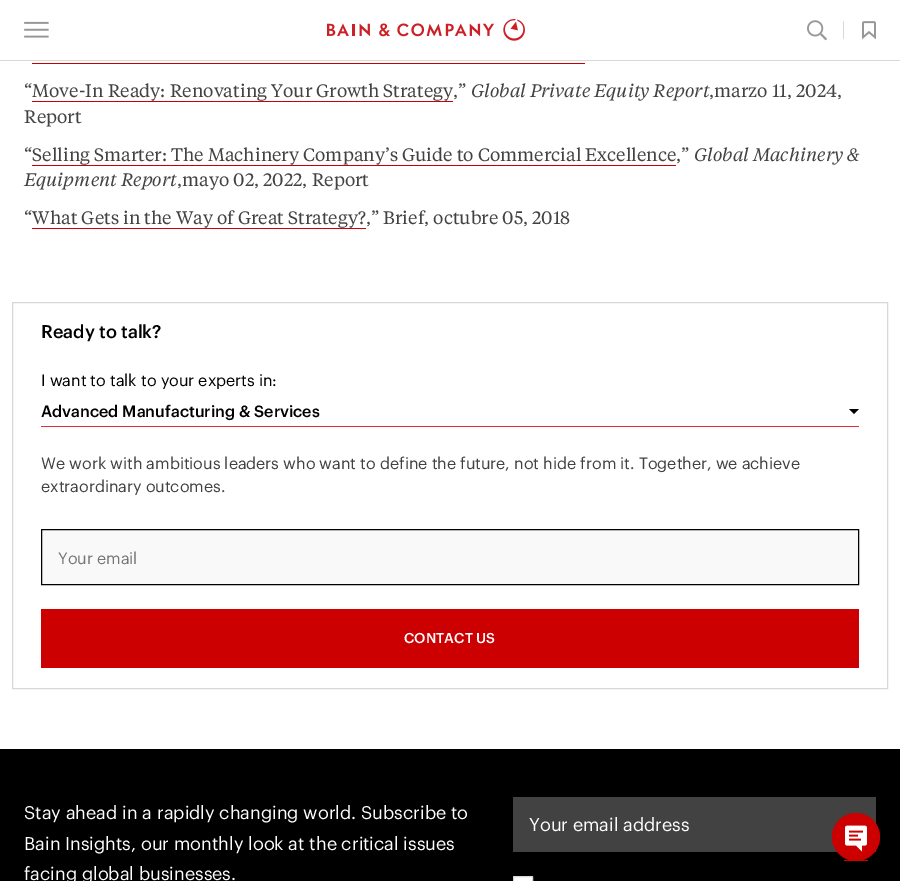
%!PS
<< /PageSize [900 881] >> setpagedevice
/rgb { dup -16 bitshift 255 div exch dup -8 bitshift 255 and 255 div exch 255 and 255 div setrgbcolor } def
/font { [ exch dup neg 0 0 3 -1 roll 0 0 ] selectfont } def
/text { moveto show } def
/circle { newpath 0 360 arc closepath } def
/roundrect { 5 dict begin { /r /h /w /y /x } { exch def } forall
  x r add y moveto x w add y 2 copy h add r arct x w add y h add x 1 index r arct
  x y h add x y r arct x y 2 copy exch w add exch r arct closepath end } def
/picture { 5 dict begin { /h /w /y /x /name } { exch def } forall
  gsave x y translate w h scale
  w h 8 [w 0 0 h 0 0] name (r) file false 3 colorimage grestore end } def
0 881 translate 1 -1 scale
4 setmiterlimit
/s1 { /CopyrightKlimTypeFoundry-Regular 18 font 16#424242 rgb } def
/s2 { /CopyrightKlimTypeFoundry-Italic 18 font 16#424242 rgb } def
/s3 { /Graphik-Medium 18 font 16#000000 rgb } def
/s4 { /Graphik-Regular 16 font 16#000000 rgb } def
/s5 { /Graphik-Medium 16 font 16#000000 rgb } def
/s6 { /Graphik-Regular 16 font 16#424242 rgb } def
/s7 { /Graphik-Regular 16 font 16#767676 rgb } def
/s8 { /Graphik-Medium 14 font 16#FFFFFF rgb } def
/s9 { /Graphik-Regular 18 font 16#FFFFFF rgb } def
16#FFFFFF rgb
0 0 900 881 rectfill
16#D8D8D8 rgb
0 60 900 1 rectfill
(pic1.raw) 24 21 25 17 picture
(pic2.raw) 327 19 198 22 picture
(pic3.raw) 807 20 20 21 picture
843 21 1 18 rectfill
(pic4.raw) 862 21 14 19 picture
16#CC0000 rgb
32 63 553 1 rectfill
s1
(“Move-In Ready: Renovating Your Growth Strategy,”) 24 97 text
16#CC0000 rgb
32 101 421 1 rectfill
s2
(Global Private Equity Report) 471 97 text
s1
(,marzo 11, 2024,) 709 97 text
(Report) 24 123 text
(“Selling Smarter: The Machinery Company’s Guide to Commercial Excellence,”) 24 161 text
16#CC0000 rgb
32 165 644 1 rectfill
s2
(Global Machinery &) 694 161 text
(Equipment Report) 24 186 text
s1
(,mayo 02, 2022, Report) 177 186 text
(“What Gets in the Way of Great Strategy?,” Brief, octubre 05, 2018) 24 224 text
16#CC0000 rgb
32 228 334 1 rectfill
16#D8D8D8 rgb
12.5 302.5 875 386 rectstroke
s3
(Ready to talk?) 41 338 text
s4
(I want to talk to your experts in:) 41 386 text
16#DC323D rgb
41 426 818 1 rectfill
s5
(Advanced Manufacturing & Services) 41 417 text
849 409 moveto 859 409 lineto 854 414 lineto closepath fill
s6
(We work with ambitious leaders who want to define the future, not hide from it. Together, we achieve) 41 469 text
(extraordinary outcomes.) 41 492 text
16#F9F9F9 rgb
41.5 529.5 moveto 858.5 529.5 lineto 858.5 584.5 lineto 41.5 584.5 lineto closepath gsave fill grestore
16#000000 rgb
stroke
s7
(Your email) 58 564 text
16#CC0000 rgb
41 609 818 59 rectfill
s8
(CONTACT US) 404 643 text
16#000000 rgb
0 749 900 132 rectfill
s9
(Stay ahead in a rapidly changing world. Subscribe to) 24 819 text
(Bain Insights, our monthly look at the critical issues) 24 850 text
(facing global businesses.) 24 880 text
16#424242 rgb
513 797 363 55 rectfill
s9
(Your email address) 529 831 text
513.5 876.5 19 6 0.5 roundrect gsave fill grestore
16#D8D8D8 rgb
stroke
16#CC0000 rgb
856 837 24 circle fill
844 860 24 1 rectfill
(pic5.raw) 845 825 22 27 picture
showpage
